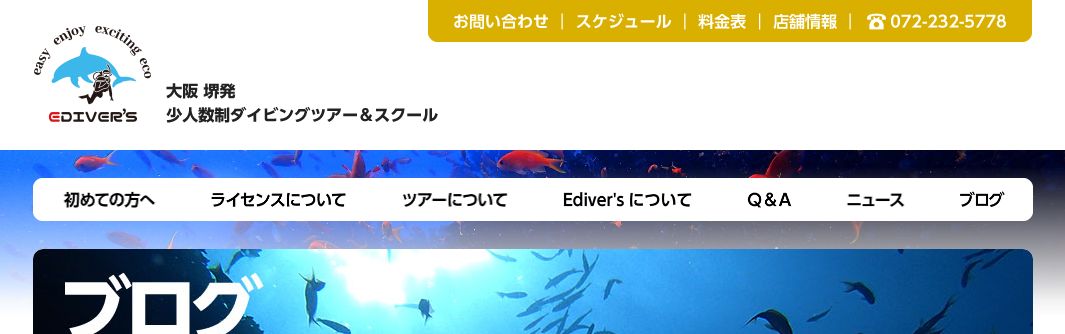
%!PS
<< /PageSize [1065 334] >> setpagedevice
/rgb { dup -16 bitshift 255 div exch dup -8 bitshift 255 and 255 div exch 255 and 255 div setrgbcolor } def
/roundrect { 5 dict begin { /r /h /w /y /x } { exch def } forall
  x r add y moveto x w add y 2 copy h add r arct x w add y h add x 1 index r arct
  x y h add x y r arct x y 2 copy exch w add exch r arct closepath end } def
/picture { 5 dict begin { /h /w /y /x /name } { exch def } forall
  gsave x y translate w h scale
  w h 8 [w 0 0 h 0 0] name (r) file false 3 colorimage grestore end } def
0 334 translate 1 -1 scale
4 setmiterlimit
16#FFFFFF rgb
0 0 1065 334 rectfill
(pic6.raw) 34 26 404 97 picture
16#D9AF00 rgb
428 0 moveto 1032 0 lineto 1032 32 lineto 1032 37.5 1027.5 42 1022 42 curveto 438 42 lineto 432.5 42 428 37.5 428 32 curveto closepath fill
(pic1.raw) 454 13 108 17 picture
(pic2.raw) 562 13 123 17 picture
(pic3.raw) 685 13 75 17 picture
(pic4.raw) 760 13 90 17 picture
(pic5.raw) 850 13 156 17 picture
(pic14.raw) 0 150 1065 184 picture
16#FFFFFF rgb
33 178 1000 43 10 roundrect fill
(pic7.raw) 63 191 93 17 picture
(pic8.raw) 211 192 135 15 picture
(pic9.raw) 402 192 106 15 picture
(pic10.raw) 563 192 129 15 picture
(pic11.raw) 747 192 45 16 picture
(pic12.raw) 846 193 59 14 picture
(pic13.raw) 960 191 45 16 picture
(pic15.raw) 33 249 1000 85 picture
showpage
